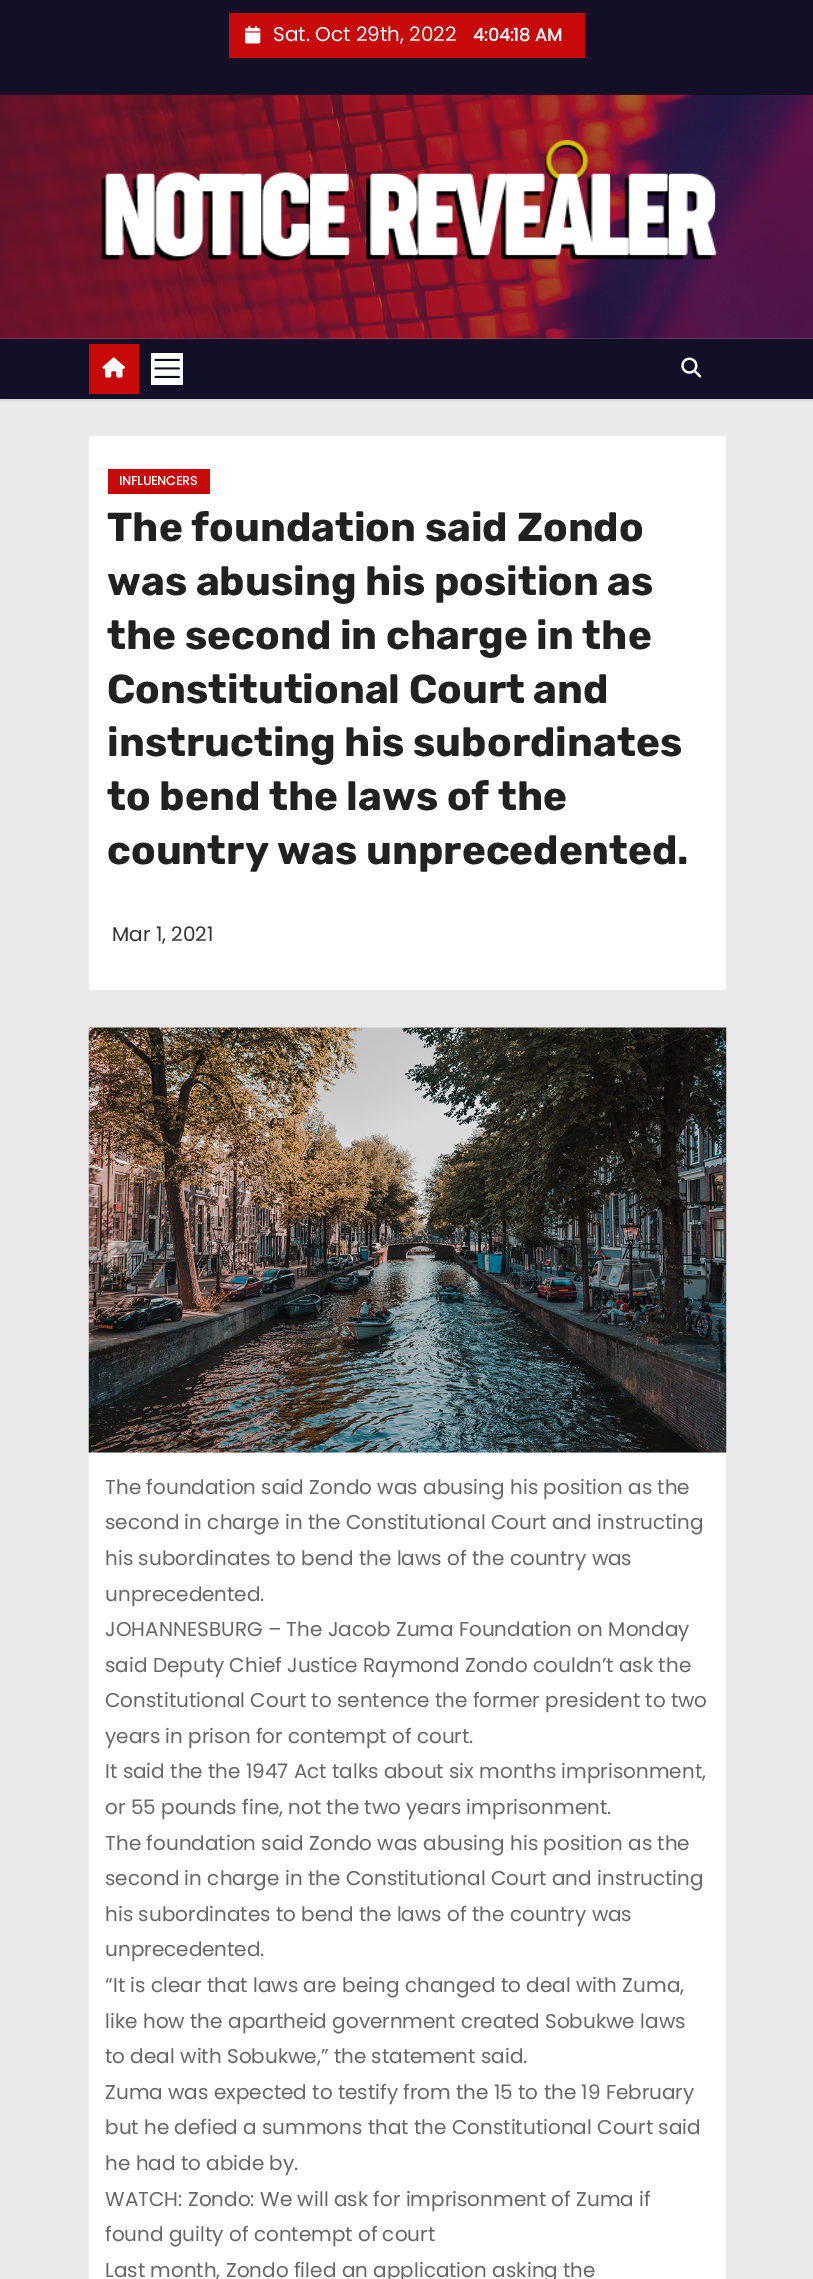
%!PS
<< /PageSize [813 2279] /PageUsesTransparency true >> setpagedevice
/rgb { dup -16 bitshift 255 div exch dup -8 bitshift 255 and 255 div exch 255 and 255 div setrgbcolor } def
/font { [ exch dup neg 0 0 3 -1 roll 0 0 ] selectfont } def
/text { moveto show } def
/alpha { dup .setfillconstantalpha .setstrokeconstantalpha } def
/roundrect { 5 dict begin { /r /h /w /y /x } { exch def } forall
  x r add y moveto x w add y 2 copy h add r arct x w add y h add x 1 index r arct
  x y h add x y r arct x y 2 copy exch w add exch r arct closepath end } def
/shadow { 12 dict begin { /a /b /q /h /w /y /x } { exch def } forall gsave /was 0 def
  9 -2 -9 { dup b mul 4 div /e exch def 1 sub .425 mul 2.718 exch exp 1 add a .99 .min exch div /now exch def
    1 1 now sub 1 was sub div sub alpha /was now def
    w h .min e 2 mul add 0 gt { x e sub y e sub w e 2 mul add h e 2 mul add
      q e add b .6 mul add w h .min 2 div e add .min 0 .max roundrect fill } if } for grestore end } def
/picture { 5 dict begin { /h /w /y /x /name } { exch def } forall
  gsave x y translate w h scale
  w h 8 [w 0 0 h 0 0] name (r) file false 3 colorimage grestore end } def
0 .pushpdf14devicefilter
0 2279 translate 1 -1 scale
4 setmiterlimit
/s1 { /Poppins-Regular 20 font 16#FFFFFF rgb } def
/s2 { /Poppins-Bold 17.5 font 16#FFFFFF rgb } def
/s3 { /Poppins-Bold 12.5 font 16#FFFFFF rgb } def
/s4 { /Rubik-Bold 40.4 font 16#212121 rgb } def
/s5 { /Poppins-Regular 20 font 16#333333 rgb } def
/s6 { /Poppins-Regular 20 font 16#666666 rgb } def
16#EAEAEA rgb
0 0 813 2279 rectfill
16#121026 rgb
0 0 813 95 rectfill
16#C70909 rgb
229 13 356 45 rectfill
(pic1.raw) 245 25 16 19 picture
s1
(Sat. Oct 29th, 2022) 273 41 text
s2
(4:04:18 AM) 473 41 text
(pic2.raw) 0 95 813 244 picture
(pic3.raw) 101 139 616 123 picture
16#000000 rgb
0 341 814 60 0 1 0.08 shadow
16#121026 rgb
0 339 813 60 rectfill
16#C70909 rgb
89 344 50 50 rectfill
(pic4.raw) 102 357 23 21 picture
16#FFFFFF rgb
151 353 32 32 rectfill
(pic5.raw) 154 358 26 20 picture
(pic6.raw) 681 357 21 21 picture
89 436 637 554 rectfill
16#C70909 rgb
108 469 102 25 rectfill
s3
(INFLUENCERS) 119 485 text
s4
(The foundation said Zondo) 107 541 text
(was abusing his position as) 107 595 text
(the second in charge in the) 107 649 text
(Constitutional Court and) 107 703 text
(instructing his subordinates) 107 756 text
(to bend the laws of the) 107 810 text
(country was unprecedented.) 107 864 text
s5
(Mar 1, 2021) 112 941 text
(pic7.raw) 88 1027 639 426 picture
16#FFFFFF rgb
89 1453 637 826 rectfill
s6
(The foundation said Zondo was abusing his position as the) 105 1494 text
(second in charge in the Constitutional Court and instructing) 105 1529 text
(his subordinates to bend the laws of the country was) 105 1565 text
(unprecedented.) 105 1601 text
(JOHANNESBURG – The Jacob Zuma Foundation on Monday) 105 1636 text
(said Deputy Chief Justice Raymond Zondo couldn’t ask the) 105 1672 text
(Constitutional Court to sentence the former president to two) 105 1707 text
(years in prison for contempt of court.) 105 1743 text
(It said the the 1947 Act talks about six months imprisonment,) 105 1778 text
(or 55 pounds fine, not the two years imprisonment.) 105 1814 text
(The foundation said Zondo was abusing his position as the) 105 1850 text
(second in charge in the Constitutional Court and instructing) 105 1885 text
(his subordinates to bend the laws of the country was) 105 1921 text
(unprecedented.) 105 1956 text
(“It is clear that laws are being changed to deal with Zuma,) 105 1992 text
(like how the apartheid government created Sobukwe laws) 105 2028 text
(to deal with Sobukwe,” the statement said.) 105 2063 text
(Zuma was expected to testify from the 15 to the 19 February) 105 2099 text
(but he defied a summons that the Constitutional Court said) 105 2134 text
(he had to abide by.) 105 2170 text
(WATCH: Zondo: We will ask for imprisonment of Zuma if) 105 2206 text
(found guilty of contempt of court) 105 2241 text
(Last month, Zondo filed an application asking the) 105 2277 text
.poppdf14devicefilter showpage
